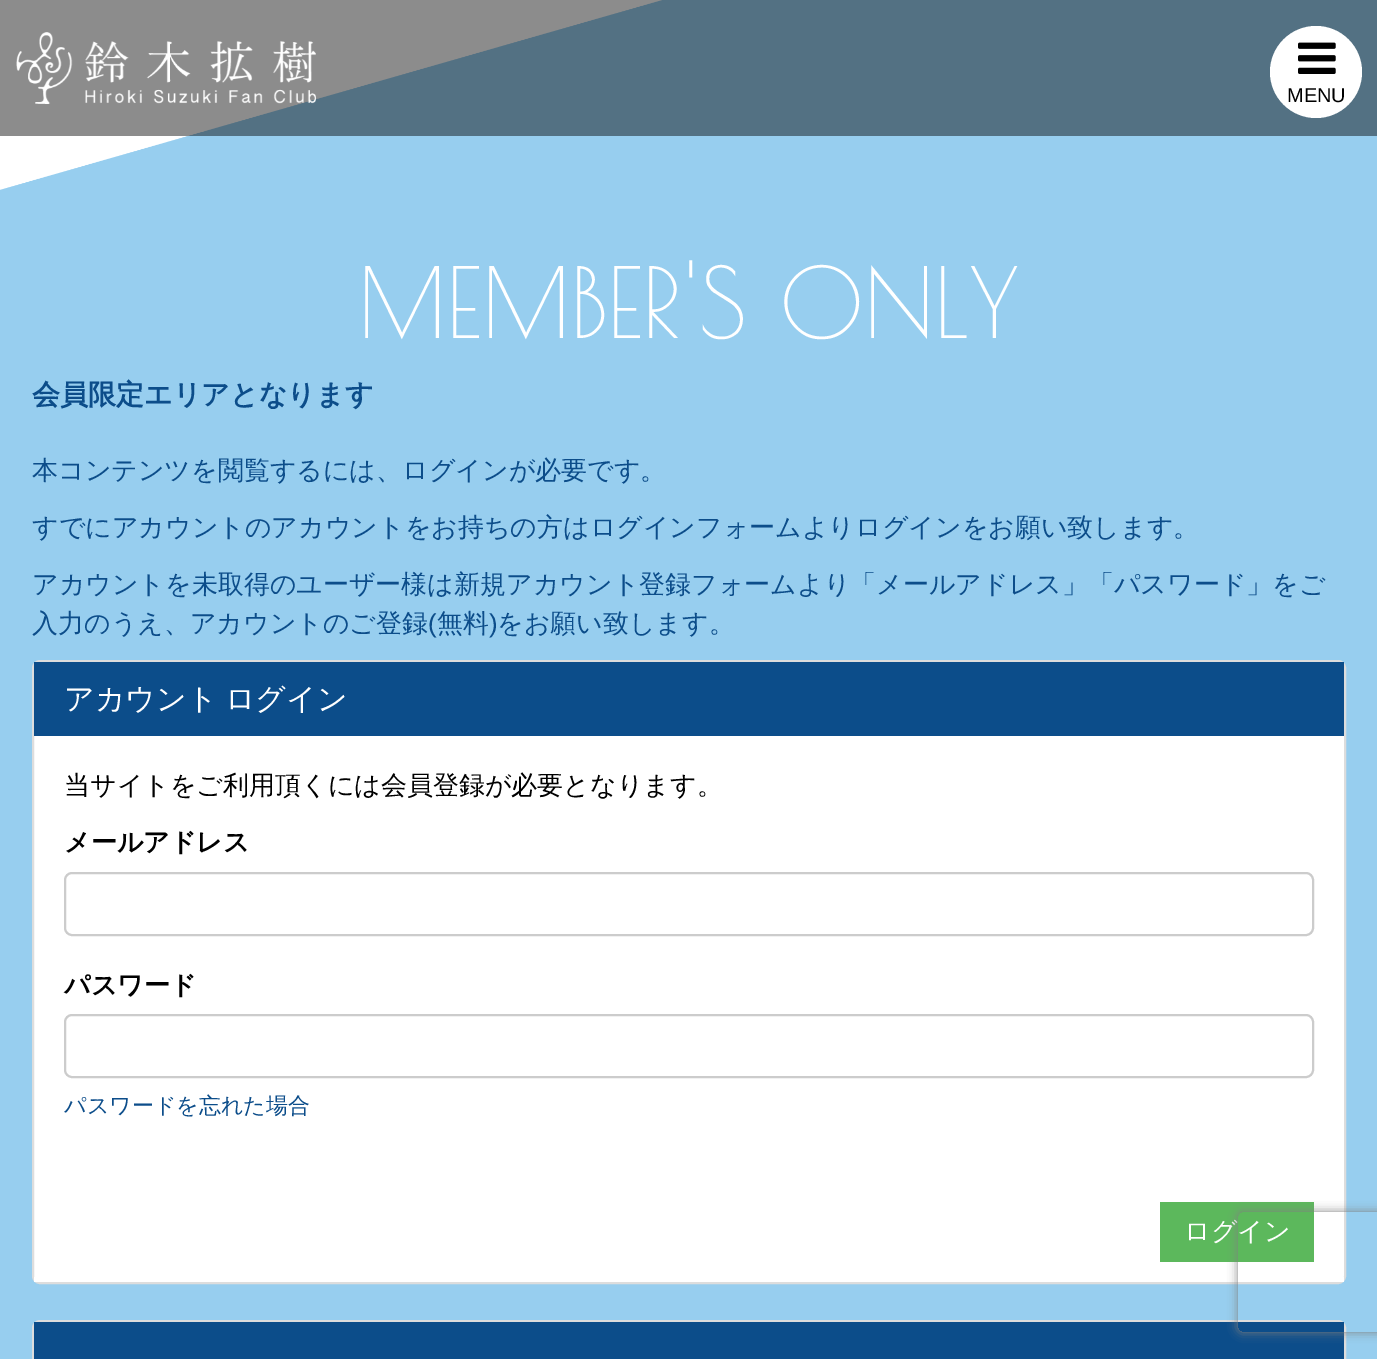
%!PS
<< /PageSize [1377 1359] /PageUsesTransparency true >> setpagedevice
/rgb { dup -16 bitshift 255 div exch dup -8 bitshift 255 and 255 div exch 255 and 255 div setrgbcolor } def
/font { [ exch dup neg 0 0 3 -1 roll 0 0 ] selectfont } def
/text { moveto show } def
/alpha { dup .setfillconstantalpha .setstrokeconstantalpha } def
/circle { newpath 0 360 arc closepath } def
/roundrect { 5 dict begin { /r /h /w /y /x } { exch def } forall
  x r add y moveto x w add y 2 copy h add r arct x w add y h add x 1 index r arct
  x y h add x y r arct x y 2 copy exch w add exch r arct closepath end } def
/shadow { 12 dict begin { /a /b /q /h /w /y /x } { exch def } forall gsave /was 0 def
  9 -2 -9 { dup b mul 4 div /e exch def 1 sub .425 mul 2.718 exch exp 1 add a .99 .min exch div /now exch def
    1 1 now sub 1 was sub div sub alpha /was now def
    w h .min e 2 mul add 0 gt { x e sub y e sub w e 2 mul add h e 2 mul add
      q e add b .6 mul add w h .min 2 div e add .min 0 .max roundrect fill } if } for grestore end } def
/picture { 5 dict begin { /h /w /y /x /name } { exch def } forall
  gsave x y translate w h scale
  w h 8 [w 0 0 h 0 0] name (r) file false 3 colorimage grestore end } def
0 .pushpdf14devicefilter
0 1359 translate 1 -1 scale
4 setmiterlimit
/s1 { /LiberationSans-Regular 20 font 16#000000 rgb } def
/s2 { /PoiretOne-Regular 96 font 16#FFFFFF rgb } def
/s3 { /WenQuanYiZenHei-Bold 28 font 16#0C4D8A rgb } def
/s4 { /WenQuanYiZenHei-Medium 26 font 16#0C4D8A rgb } def
/s5 { /LiberationSans-Regular 26 font 16#0C4D8A rgb } def
/s6 { /WenQuanYiZenHei-Medium 26 font 16#000000 rgb } def
/s7 { /WenQuanYiZenHei-Bold 26 font 16#000000 rgb } def
/s8 { /WenQuanYiZenHei-Medium 22 font 16#0C4D8A rgb } def
/s9 { /WenQuanYiZenHei-Medium 26 font 16#FFFFFF rgb } def
16#97CEEF rgb
0 0 1377 1359 rectfill
(pic3.raw) 0 0 662 190 picture
0.45 alpha
16#000000 rgb
0 0 1377 136 rectfill
1 alpha
(pic1.raw) 16 32 300 72 picture
16#FFFFFF rgb
1316 72 46 circle fill
(pic2.raw) 1298 42 38 32 picture
s1
(MENU) 1287 102 text
s2
(MEMBER'S ONLY) 358 338 text
s3
(会員限定エリアとなります) 32 404 text
s4
(本コンテンツを閲覧するには、ログインが必要です。) 32 479 text
(すでにアカウントのアカウントをお持ちの方はログインフォームよりログインをお願い致します。) 32 536 text
(アカウントを未取得のユーザー様は新規アカウント登録フォームより「メールアドレス」「パスワード」をご) 32 593 text
(入力のうえ、アカウントのご登録) 32 632 text
s5
(\() 428 632 text
s4
(無料) 437 632 text
s5
(\)) 489 632 text
s4
(をお願い致します。) 497 632 text
16#FFFFFF rgb
33 661 1312 622 7 roundrect gsave fill grestore
16#DDDDDD rgb
2 setlinewidth
stroke
16#0C4D8A rgb
34 662 1310 74 rectfill
/WenQuanYiZenHei-Medium 30 font
16#FFFFFF rgb
64 709 moveto -2 0 32 (アカウント ログイン) widthshow
s6
(当サイトをご利用頂くには会員登録が必要となります。) 64 794 text
s7
(メールアドレス) 64 851 text
16#CCCCCC rgb
65 873 1248 62 7 roundrect stroke
s7
(パスワード) 64 994 text
16#CCCCCC rgb
65 1015 1248 62 7 roundrect stroke
s8
(パスワードを忘れた場合) 64 1113 text
16#FFFFFF rgb
34 1277 1310 5 rectfill
16#5CB85C rgb
1160 1202 154 60 rectfill
s9
(ログイン) 1184 1240 text
16#DDDDDD rgb
33 1321 1312 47 7 roundrect stroke
16#0C4D8A rgb
34 1322 1310 37 rectfill
gsave
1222 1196 moveto 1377 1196 lineto 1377 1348 lineto 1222 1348 lineto closepath 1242 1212 moveto 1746 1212 lineto 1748 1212 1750 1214 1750 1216 curveto 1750 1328 lineto 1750 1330 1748 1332 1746 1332 curveto 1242 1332 lineto 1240 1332 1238 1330 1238 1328 curveto 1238 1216 lineto 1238 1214 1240 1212 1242 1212 curveto closepath eoclip newpath
16#808080 rgb
1238 1212 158 120 4 5 1 shadow
grestore
.poppdf14devicefilter showpage
